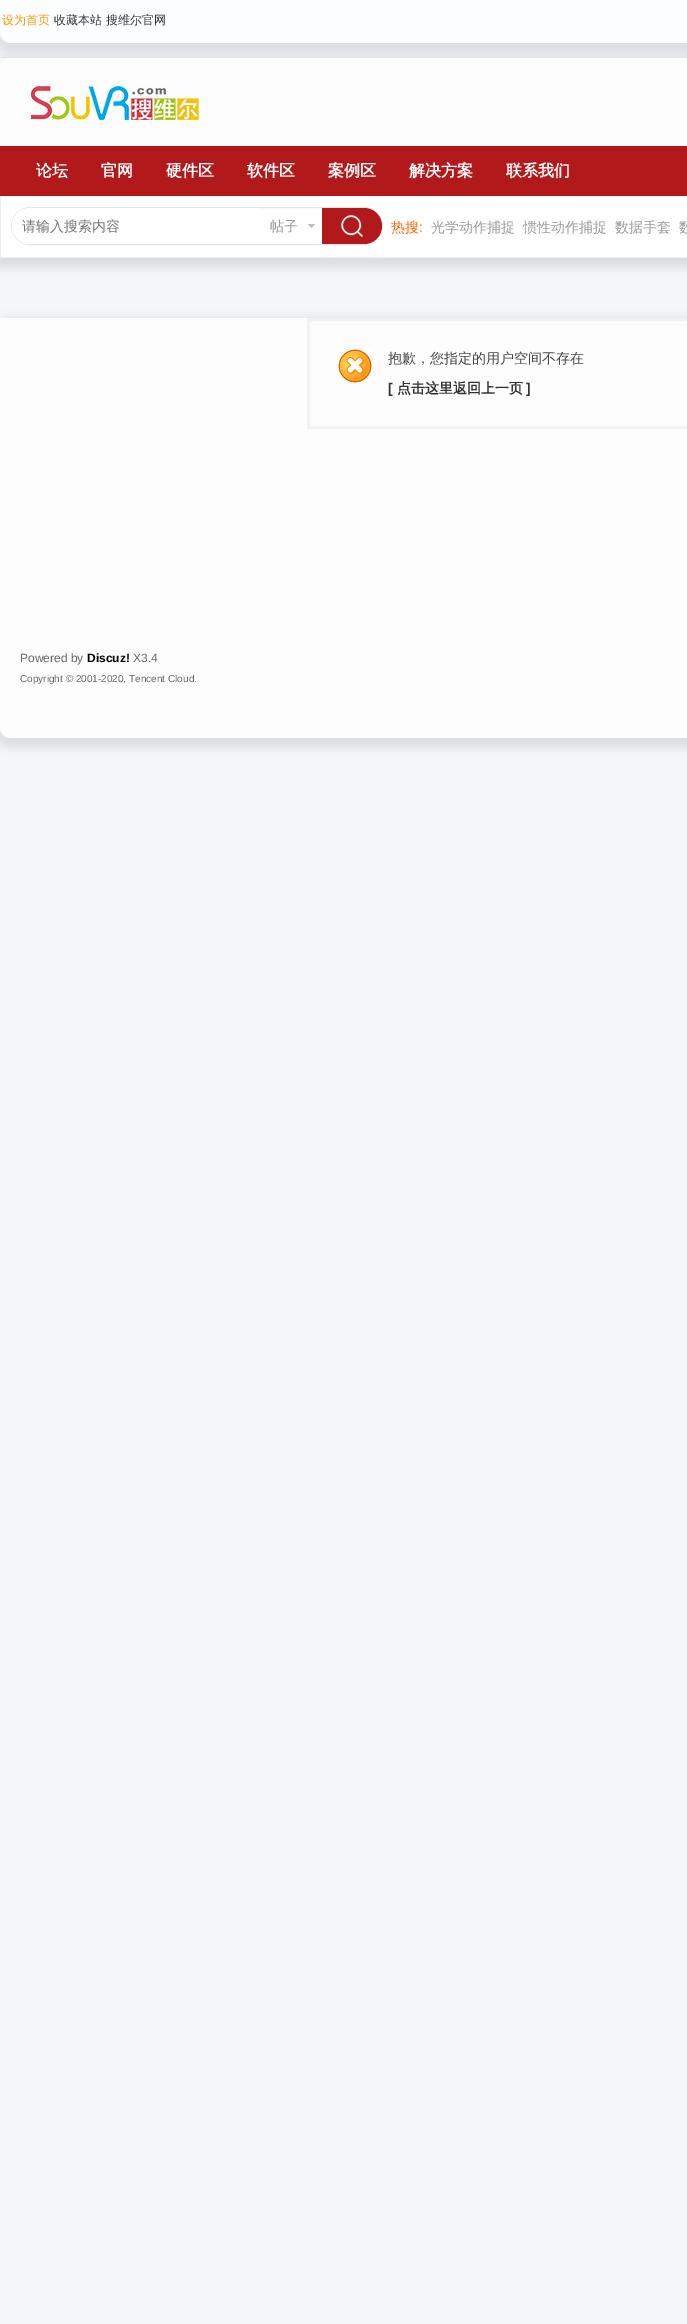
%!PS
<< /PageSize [687 2324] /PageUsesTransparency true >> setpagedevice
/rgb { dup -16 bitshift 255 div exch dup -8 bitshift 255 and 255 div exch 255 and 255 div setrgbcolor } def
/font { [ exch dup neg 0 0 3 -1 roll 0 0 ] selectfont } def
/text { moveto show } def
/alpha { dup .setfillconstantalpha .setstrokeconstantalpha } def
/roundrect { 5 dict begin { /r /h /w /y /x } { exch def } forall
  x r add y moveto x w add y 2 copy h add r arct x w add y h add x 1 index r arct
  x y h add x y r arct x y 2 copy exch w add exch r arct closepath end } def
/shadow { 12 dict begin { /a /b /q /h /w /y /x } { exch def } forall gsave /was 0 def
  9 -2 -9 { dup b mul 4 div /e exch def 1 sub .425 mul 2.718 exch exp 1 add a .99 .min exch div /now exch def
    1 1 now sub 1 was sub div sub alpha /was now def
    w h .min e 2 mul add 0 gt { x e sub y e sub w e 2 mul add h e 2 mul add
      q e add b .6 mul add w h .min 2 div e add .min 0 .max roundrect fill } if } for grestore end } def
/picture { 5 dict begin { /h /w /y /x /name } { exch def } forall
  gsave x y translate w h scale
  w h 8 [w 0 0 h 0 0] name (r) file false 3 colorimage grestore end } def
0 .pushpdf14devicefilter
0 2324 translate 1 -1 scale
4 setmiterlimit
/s1 { /WenQuanYiZenHei-Medium 12 font 16#FF9900 rgb } def
/s2 { /WenQuanYiZenHei-Medium 12 font 16#333333 rgb } def
/s3 { /WenQuanYiZenHei-Bold 16 font 16#FFFFFF rgb } def
/s4 { /WenQuanYiZenHei-Medium 14 font 16#757575 rgb } def
/s5 { /WenQuanYiZenHei-Medium 14 font 16#999999 rgb } def
/s6 { /WenQuanYiZenHei-Medium 14 font 16#FF6600 rgb } def
/s7 { /LiberationSans-Regular 14 font 16#FF6600 rgb } def
/s8 { /WenQuanYiZenHei-Medium 14 font 16#444444 rgb } def
/s9 { /LiberationSans-Bold 14 font 16#333333 rgb } def
/s10 { /WenQuanYiZenHei-Bold 14 font 16#333333 rgb } def
/s11 { /LiberationSans-Regular 12 font 16#666666 rgb } def
/s12 { /LiberationSans-Bold 12 font 16#000000 rgb } def
/s13 { /LiberationSans-Regular 10 font 16#666666 rgb } def
16#F5F7FA rgb
0 0 687 2324 rectfill
gsave
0 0 moveto 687 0 lineto 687 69 lineto 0 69 lineto closepath 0 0 moveto 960 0 lineto 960 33 lineto 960 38.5 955.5 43 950 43 curveto 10 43 lineto 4.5 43 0 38.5 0 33 curveto closepath eoclip newpath
16#000000 rgb
-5 0 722 53 15 5 0.1 shadow
grestore
0.7 alpha
16#FFFFFF rgb
0 0 moveto 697 0 lineto 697 33 lineto 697 38.5 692.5 43 687 43 curveto 10 43 lineto 4.5 43 0 38.5 0 33 curveto closepath fill
1 alpha
s1
(设为首页) 2 24 text
s2
(收藏本站) 54 24 text
(搜维尔官网) 106 24 text
gsave
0 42 moveto 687 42 lineto 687 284 lineto 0 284 lineto closepath 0 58 moveto 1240 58 lineto 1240 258 lineto 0 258 lineto closepath eoclip newpath
16#000000 rgb
-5 58 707 210 0 5 0.1 shadow
grestore
0.8 alpha
16#FFFFFF rgb
10 58 moveto 687 58 lineto 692.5 58 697 62.5 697 68 curveto 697 146 lineto 0 146 lineto 0 68 lineto 0 62.5 4.5 58 10 58 curveto closepath fill
1 alpha
(pic1.raw) 31 86 168 34 picture
16#B1191A rgb
0 146 687 50 rectfill
s3
(论坛) 36 176 text
(官网) 101 176 text
(硬件区) 166 176 text
(软件区) 247 176 text
(案例区) 328 176 text
(解决方案) 409 176 text
(联系我们) 506 176 text
1 196 686 61 rectfill
16#EEEEEE rgb
0 257 687 1 rectfill
0 196 1 62 rectfill
16#E6E6E6 rgb
11.5 207.5 371 37 18.5 roundrect stroke
(pic2.raw) 12 215 18 29 picture
16#FFFFFF rgb
30 208 moveto 260 208 lineto 260 244 lineto 30 244 lineto 20 244 12 236 12 226 curveto 12 216 20 208 30 208 curveto closepath fill
s4
(请输入搜索内容) 22 231 text
(pic3.raw) 308 224 7 4 picture
s5
(帖子) 270 231 text
16#B1191A rgb
322 208 moveto 364 208 lineto 374 208 382 216 382 226 curveto 382 236 374 244 364 244 curveto 322 244 lineto closepath fill
(pic4.raw) 341 215 22 22 picture
s6
(热搜) 391 232 text
s7
(:) 419 232 text
s5
(光学动作捕捉) 431 232 text
(惯性动作捕捉) 523 232 text
(数据手套) 615 232 text
(数) 679 232 text
gsave
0 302 moveto 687 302 lineto 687 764 lineto 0 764 lineto closepath 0 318 moveto 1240 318 lineto 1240 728 lineto 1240 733.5 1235.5 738 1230 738 curveto 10 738 lineto 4.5 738 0 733.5 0 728 curveto closepath eoclip newpath
16#000000 rgb
-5 318 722 430 15 5 0.1 shadow
grestore
0.8 alpha
16#FFFFFF rgb
0 318 moveto 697 318 lineto 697 728 lineto 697 733.5 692.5 738 687 738 curveto 10 738 lineto 4.5 738 0 733.5 0 728 curveto closepath fill
1 alpha
16#F2F2F2 rgb
3 setlinewidth
308.5 319.5 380 108 rectstroke
(pic5.raw) 338 349 34 34 picture
s8
(抱歉，您指定的用户空间不存在) 388 363 text
s9
([) 388 393 text
s10
(点击这里返回上一页) 397 393 text
s9
(]) 526 393 text
s11
(Powered by) 20 662 text
s12
(Discuz!) 87 662 text
s11
(X3.4) 133 662 text
s13
(Copyright © 2001-2020, Tencent Cloud.) 20 682 text
.poppdf14devicefilter showpage
